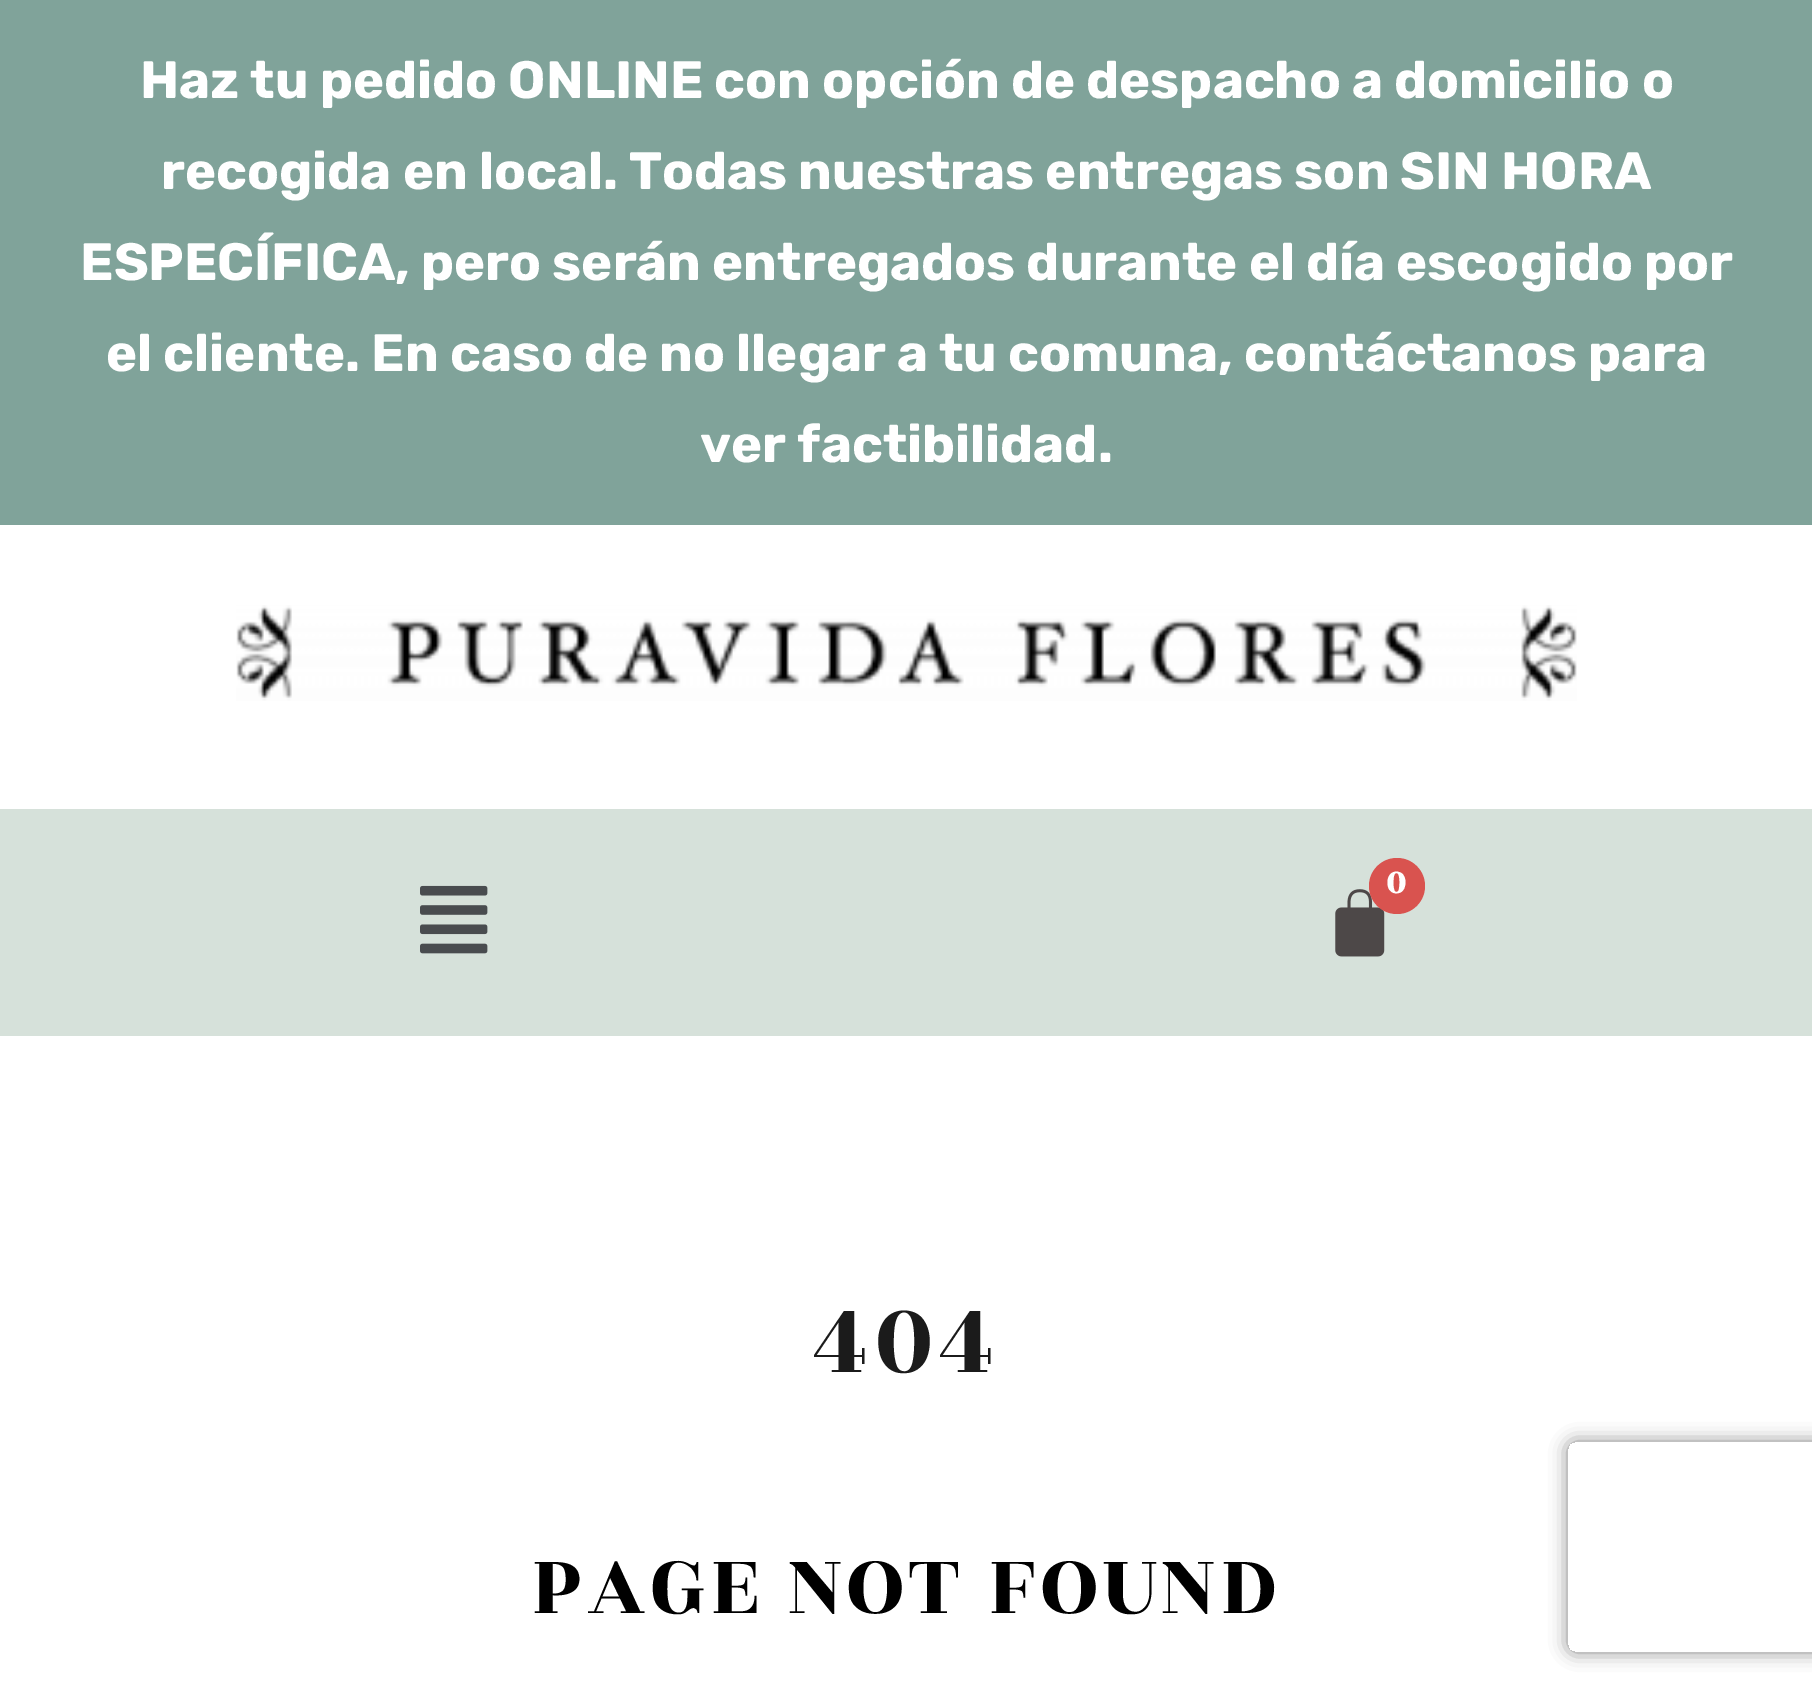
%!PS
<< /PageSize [1812 1699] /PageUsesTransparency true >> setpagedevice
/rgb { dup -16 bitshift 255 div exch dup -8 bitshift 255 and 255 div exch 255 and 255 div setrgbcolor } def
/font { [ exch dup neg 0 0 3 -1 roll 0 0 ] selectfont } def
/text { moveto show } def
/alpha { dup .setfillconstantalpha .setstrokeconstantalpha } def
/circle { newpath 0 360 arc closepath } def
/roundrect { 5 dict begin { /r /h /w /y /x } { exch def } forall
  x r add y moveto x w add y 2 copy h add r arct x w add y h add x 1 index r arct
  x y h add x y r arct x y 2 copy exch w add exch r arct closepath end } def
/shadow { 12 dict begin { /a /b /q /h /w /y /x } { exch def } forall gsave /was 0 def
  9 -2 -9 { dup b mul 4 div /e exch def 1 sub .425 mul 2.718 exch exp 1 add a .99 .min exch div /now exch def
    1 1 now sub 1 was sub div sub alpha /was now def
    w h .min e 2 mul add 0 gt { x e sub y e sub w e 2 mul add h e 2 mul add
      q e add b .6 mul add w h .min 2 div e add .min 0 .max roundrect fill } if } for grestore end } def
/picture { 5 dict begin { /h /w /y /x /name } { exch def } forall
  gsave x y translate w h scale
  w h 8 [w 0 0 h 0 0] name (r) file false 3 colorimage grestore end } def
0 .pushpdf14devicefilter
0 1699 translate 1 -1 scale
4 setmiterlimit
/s1 { /Rubik-Bold 52.5 font 16#FFFFFF rgb } def
/s2 { /RozhaOne-Bold 35 font 16#FFFFFF rgb } def
16#FFFFFF rgb
0 0 1812 1699 rectfill
16#80A39A rgb
0 0 1812 525 rectfill
s1
(Haz tu pedido ONLINE con opción de despacho a domicilio o) 140 98 text
(recogida en local. Todas nuestras entregas son SIN HORA) 161 189 text
(ESPECÍFICA, pero serán entregados durante el día escogido por) 80 280 text
(el cliente. En caso de no llegar a tu comuna, contáctanos para) 106 371 text
(ver factibilidad.) 700 462 text
(pic1.raw) 236 605 1341 96 picture
16#D6E1DA rgb
0 809 1812 227 rectfill
(pic2.raw) 420 885 68 69 picture
(pic3.raw) 1335 889 50 68 picture
16#D9534F rgb
1397 886 28 circle fill
s2
(0) 1386 893 text
/RozhaOne-Regular 105 font
16#1B1B1B rgb
813 1372 moveto 5 0 (404) ashow
/RozhaOne-Regular 91 font
16#000000 rgb
531 1613 moveto 4.5 0 (PAGE NOT FOUND) ashow
gsave
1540 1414 moveto 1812 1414 lineto 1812 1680 lineto 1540 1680 lineto closepath 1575 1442 moveto 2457 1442 lineto 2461 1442 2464 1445 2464 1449 curveto 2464 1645 lineto 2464 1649 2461 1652 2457 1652 curveto 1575 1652 lineto 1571 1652 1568 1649 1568 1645 curveto 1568 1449 lineto 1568 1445 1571 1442 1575 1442 curveto closepath eoclip newpath
16#808080 rgb
1568 1442 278 210 7 9 1 shadow
grestore
.poppdf14devicefilter showpage
